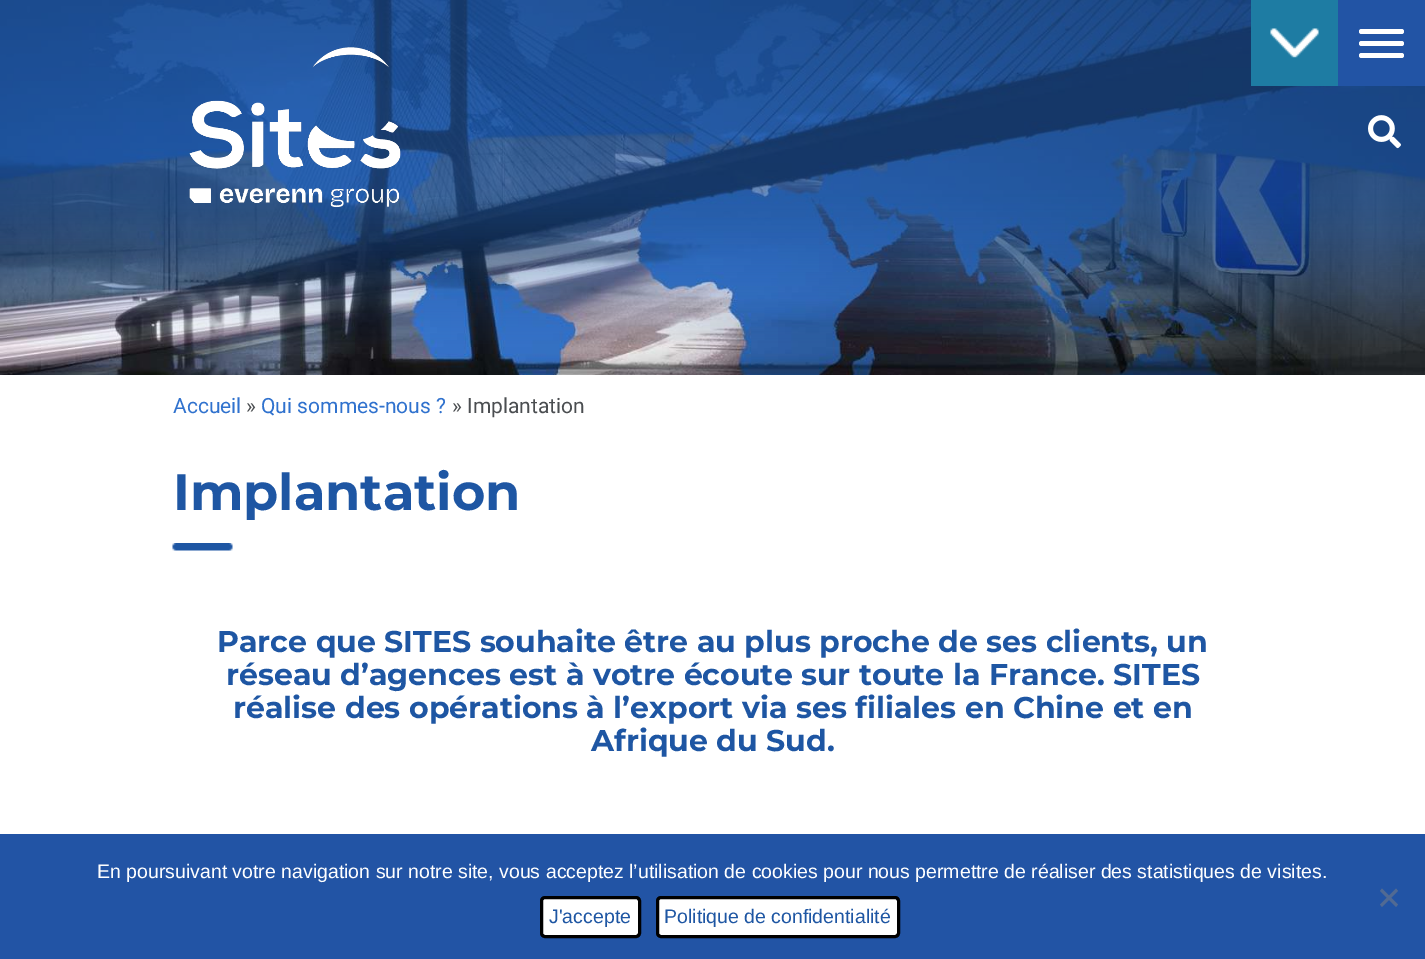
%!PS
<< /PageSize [1425 959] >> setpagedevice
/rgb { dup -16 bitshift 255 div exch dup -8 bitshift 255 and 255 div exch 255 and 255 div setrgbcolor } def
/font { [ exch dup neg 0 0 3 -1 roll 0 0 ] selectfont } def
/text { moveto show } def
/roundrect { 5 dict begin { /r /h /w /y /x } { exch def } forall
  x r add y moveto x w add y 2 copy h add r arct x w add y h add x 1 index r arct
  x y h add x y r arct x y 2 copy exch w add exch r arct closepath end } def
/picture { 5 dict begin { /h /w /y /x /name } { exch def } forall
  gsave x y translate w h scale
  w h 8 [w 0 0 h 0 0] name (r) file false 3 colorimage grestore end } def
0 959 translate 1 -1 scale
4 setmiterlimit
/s1 { /Roboto-Regular 21 font 16#3072CE rgb } def
/s2 { /Roboto-Regular 21 font 16#4B4E51 rgb } def
/s3 { /Montserrat-Bold 51 font 16#1E56A3 rgb } def
/s4 { /Montserrat-Bold 30 font 16#1E56A3 rgb } def
/s5 { /LiberationSans-Regular 19.5 font 16#FFFFFF rgb } def
/s6 { /LiberationSans-Regular 19.5 font 16#1E56A3 rgb } def
16#FFFFFF rgb
0 0 1425 959 rectfill
(pic1.raw) 0 0 1425 375 picture
(pic2.raw) 0 0 1425 344 picture
(pic3.raw) 189 47 212 161 picture
16#1E7CA3 rgb
1251 0 87 86 rectfill
(pic4.raw) 1270 28 49 30 picture
16#2254A5 rgb
1338 0 87 86 rectfill
16#FFFFFF rgb
1359 29 45 5 2.5 roundrect fill
1359 41 45 5 2.5 roundrect fill
1359 53 45 5 2.5 roundrect fill
(pic5.raw) 1368 115 33 34 picture
s1
(Accueil) 173 413 text
s2
(») 246 413 text
s1
(Qui sommes-nous ?) 261 413 text
s2
(» Implantation) 452 413 text
(pic6.raw) 172 543 61 8 picture
s3
(Implantation) 173 510 text
s4
(Parce que SITES souhaite être au plus proche de ses clients, un) 217 652 text
(réseau d’agences est à votre écoute sur toute la France. SITES) 226 685 text
(réalise des opérations à l’export via ses filiales en Chine et en) 233 718 text
(Afrique du Sud.) 591 751 text
16#2254A5 rgb
0 834 1425 125 rectfill
s5
(En poursuivant votre navigation sur notre site, vous acceptez l’utilisation de cookies pour nous permettre de réaliser des statistiques de visites.) 97 878 text
16#516A93 rgb
1396 888.5 moveto 1398 891 lineto 1382 907 lineto 1380 904.5 lineto closepath fill
1380 891 moveto 1382 888.5 lineto 1398 904.5 lineto 1396 907 lineto closepath fill
16#FFFFFF rgb
541.5 897.5 98 39 3.5 roundrect gsave fill grestore
16#000000 rgb
3 setlinewidth
stroke
s6
(J'accepte) 549 923 text
16#FFFFFF rgb
657.5 897.5 241 39 3.5 roundrect gsave fill grestore
16#000000 rgb
stroke
s6
(Politique de confidentialité) 664 923 text
showpage
